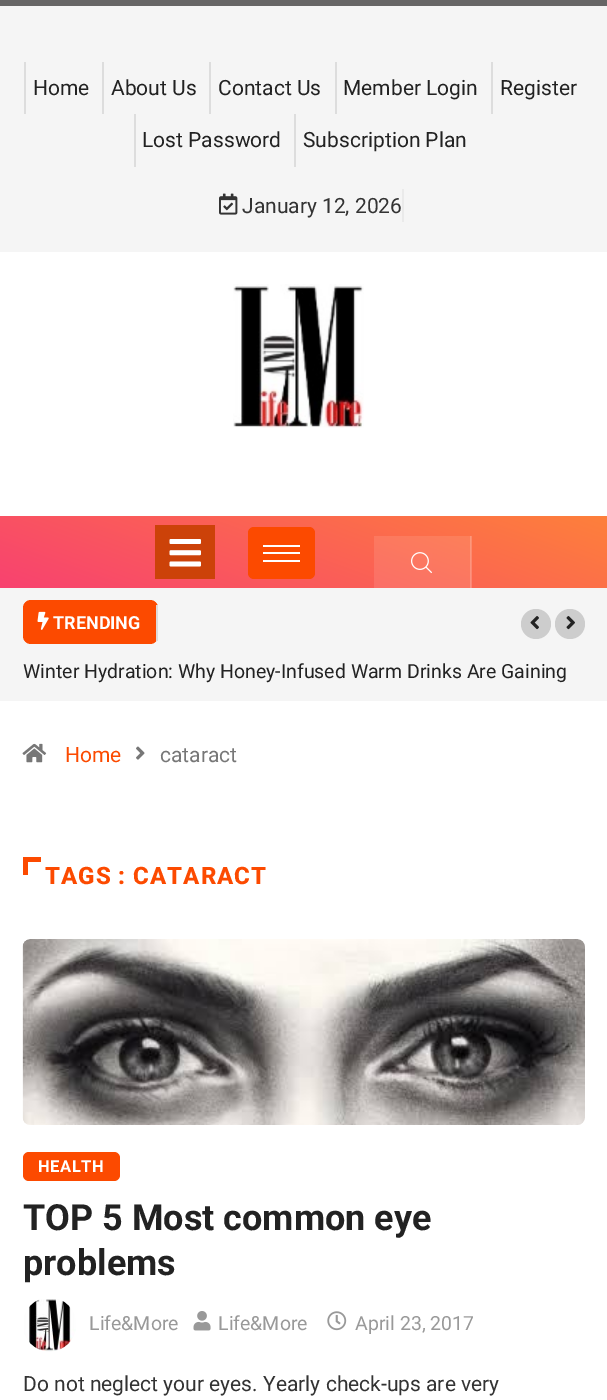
%!PS
<< /PageSize [607 1400] >> setpagedevice
/rgb { dup -16 bitshift 255 div exch dup -8 bitshift 255 and 255 div exch 255 and 255 div setrgbcolor } def
/font { [ exch dup neg 0 0 3 -1 roll 0 0 ] selectfont } def
/text { moveto show } def
/circle { newpath 0 360 arc closepath } def
/roundrect { 5 dict begin { /r /h /w /y /x } { exch def } forall
  x r add y moveto x w add y 2 copy h add r arct x w add y h add x 1 index r arct
  x y h add x y r arct x y 2 copy exch w add exch r arct closepath end } def
/picture { 5 dict begin { /h /w /y /x /name } { exch def } forall
  gsave x y translate w h scale
  w h 8 [w 0 0 h 0 0] name (r) file false 3 colorimage grestore end } def
0 1400 translate 1 -1 scale
4 setmiterlimit
/s1 { /Roboto-Regular 21 font 16#222222 rgb } def
/s2 { /Roboto-Regular 21 font 16#333333 rgb } def
/s3 { /Roboto-Bold 18 font 16#FFFFFF rgb } def
/s4 { /Roboto-Regular 19.5 font 16#222222 rgb } def
/s5 { /Roboto-Regular 21 font 16#FC4A00 rgb } def
/s6 { /Roboto-Regular 21 font 16#777777 rgb } def
/s7 { /Roboto-Bold 36 font 16#222222 rgb } def
/s8 { /Roboto-Regular 19.5 font 16#999999 rgb } def
16#FFFFFF rgb
0 0 607 1400 rectfill
16#676666 rgb
0 0 607 6 rectfill
16#F5F5F5 rgb
0 6 607 246 rectfill
16#DDDDDD rgb
24 62 2 52 rectfill
s1
(Home) 33 95 text
16#DDDDDD rgb
102 62 2 52 rectfill
s1
(About Us) 111 95 text
16#DDDDDD rgb
209 62 2 52 rectfill
s1
(Contact Us) 218 95 text
16#DDDDDD rgb
335 62 2 52 rectfill
s1
(Member Login) 343 95 text
16#DDDDDD rgb
491 62 2 52 rectfill
s1
(Register) 500 95 text
16#DDDDDD rgb
134 114 2 53 rectfill
s1
(Lost Password) 142 147 text
16#DDDDDD rgb
294 114 2 53 rectfill
s1
(Subscription Plan) 303 147 text
16#EAEAEA rgb
402 189 2 33 rectfill
(pic1.raw) 219 193 19 22 picture
s2
(January 12, 2026) 242 213 text
(pic2.raw) 233 284 131 144 picture
gsave 0 516 moveto 607 516 lineto 607 588 lineto 0 588 lineto closepath clip newpath
<< /ShadingType 2 /ColorSpace /DeviceRGB /Coords [257 681 351 423] /Extend [true true] /Function << /FunctionType 2 /Domain [0 1] /C0 [0.973 0.259 0.439] /C1 [0.996 0.502 0.231] /N 1 >> >> shfill grestore
gsave 471 536 moveto 472 536 lineto 472 588 lineto 471 588 lineto closepath clip newpath
<< /ShadingType 2 /ColorSpace /DeviceRGB /Coords [257 681 351 423] /Extend [true true] /Function << /FunctionType 2 /Domain [0 1] /C0 [0.976 0.408 0.553] /C1 [0.996 0.6 0.384] /N 1 >> >> shfill grestore
gsave 374 536 moveto 470 536 lineto 470 588 lineto 374 588 lineto closepath clip newpath
<< /ShadingType 2 /ColorSpace /DeviceRGB /Coords [257 681 351 423] /Extend [true true] /Function << /FunctionType 2 /Domain [0 1] /C0 [0.976 0.333 0.494] /C1 [0.996 0.553 0.31] /N 1 >> >> shfill grestore
gsave 470 536 moveto 471 536 lineto 471 588 lineto 470 588 lineto closepath clip newpath
<< /ShadingType 2 /ColorSpace /DeviceRGB /Coords [257 681 351 423] /Extend [true true] /Function << /FunctionType 2 /Domain [0 1] /C0 [0.98 0.467 0.596] /C1 [0.996 0.643 0.447] /N 1 >> >> shfill grestore
16#CC4209 rgb
155 525 60 54 rectfill
(pic3.raw) 169 539 32 28 picture
16#FC4A00 rgb
248 527 67 52 6 roundrect fill
16#FFFFFF rgb
263 545 37 2 rectfill
263 552 37 2 rectfill
263 560 37 2 rectfill
(pic4.raw) 411 552 21 22 picture
16#F5F5F5 rgb
0 588 607 113 rectfill
16#FC4A00 rgb
23 600 135 44 8 roundrect fill
16#DEDBDB rgb
156 605 2 36 rectfill
(pic5.raw) 37 611 12 19 picture
s3
(TRENDING) 53 629 text
16#CDCDCD rgb
536 624 15 circle fill
(pic6.raw) 530 616 9 14 picture
570 624 15 circle fill
(pic7.raw) 566 616 9 14 picture
s4
(Winter Hydration: Why Honey-Infused Warm Drinks Are Gaining) 23 678 text
(pic8.raw) 22 743 25 20 picture
s5
(Home) 65 762 text
(pic9.raw) 136 746 9 14 picture
s6
(cataract) 160 762 text
16#FC4A00 rgb
23 857 5 18 rectfill
23 857 18 5 rectfill
/Roboto-ExtraBold 24 font
45 884 moveto 1 0 (TAGS : CATARACT) ashow
(pic10.raw) 22 939 563 186 picture
23 1152 97 29 6 roundrect fill
/Roboto-Bold 16.5 font
16#FFFFFF rgb
38 1172 moveto 0.5 0 (HEALTH) ashow
s7
(TOP 5 Most common eye) 23 1230 text
(problems) 23 1275 text
(pic11.raw) 24 1299 52 53 picture
s8
(Life&More) 89 1330 text
(pic12.raw) 193 1311 18 20 picture
(Life&More) 218 1330 text
(pic13.raw) 327 1311 20 20 picture
(April 23, 2017) 355 1330 text
s2
(Do not neglect your eyes. Yearly check-ups are very) 23 1391 text
showpage
